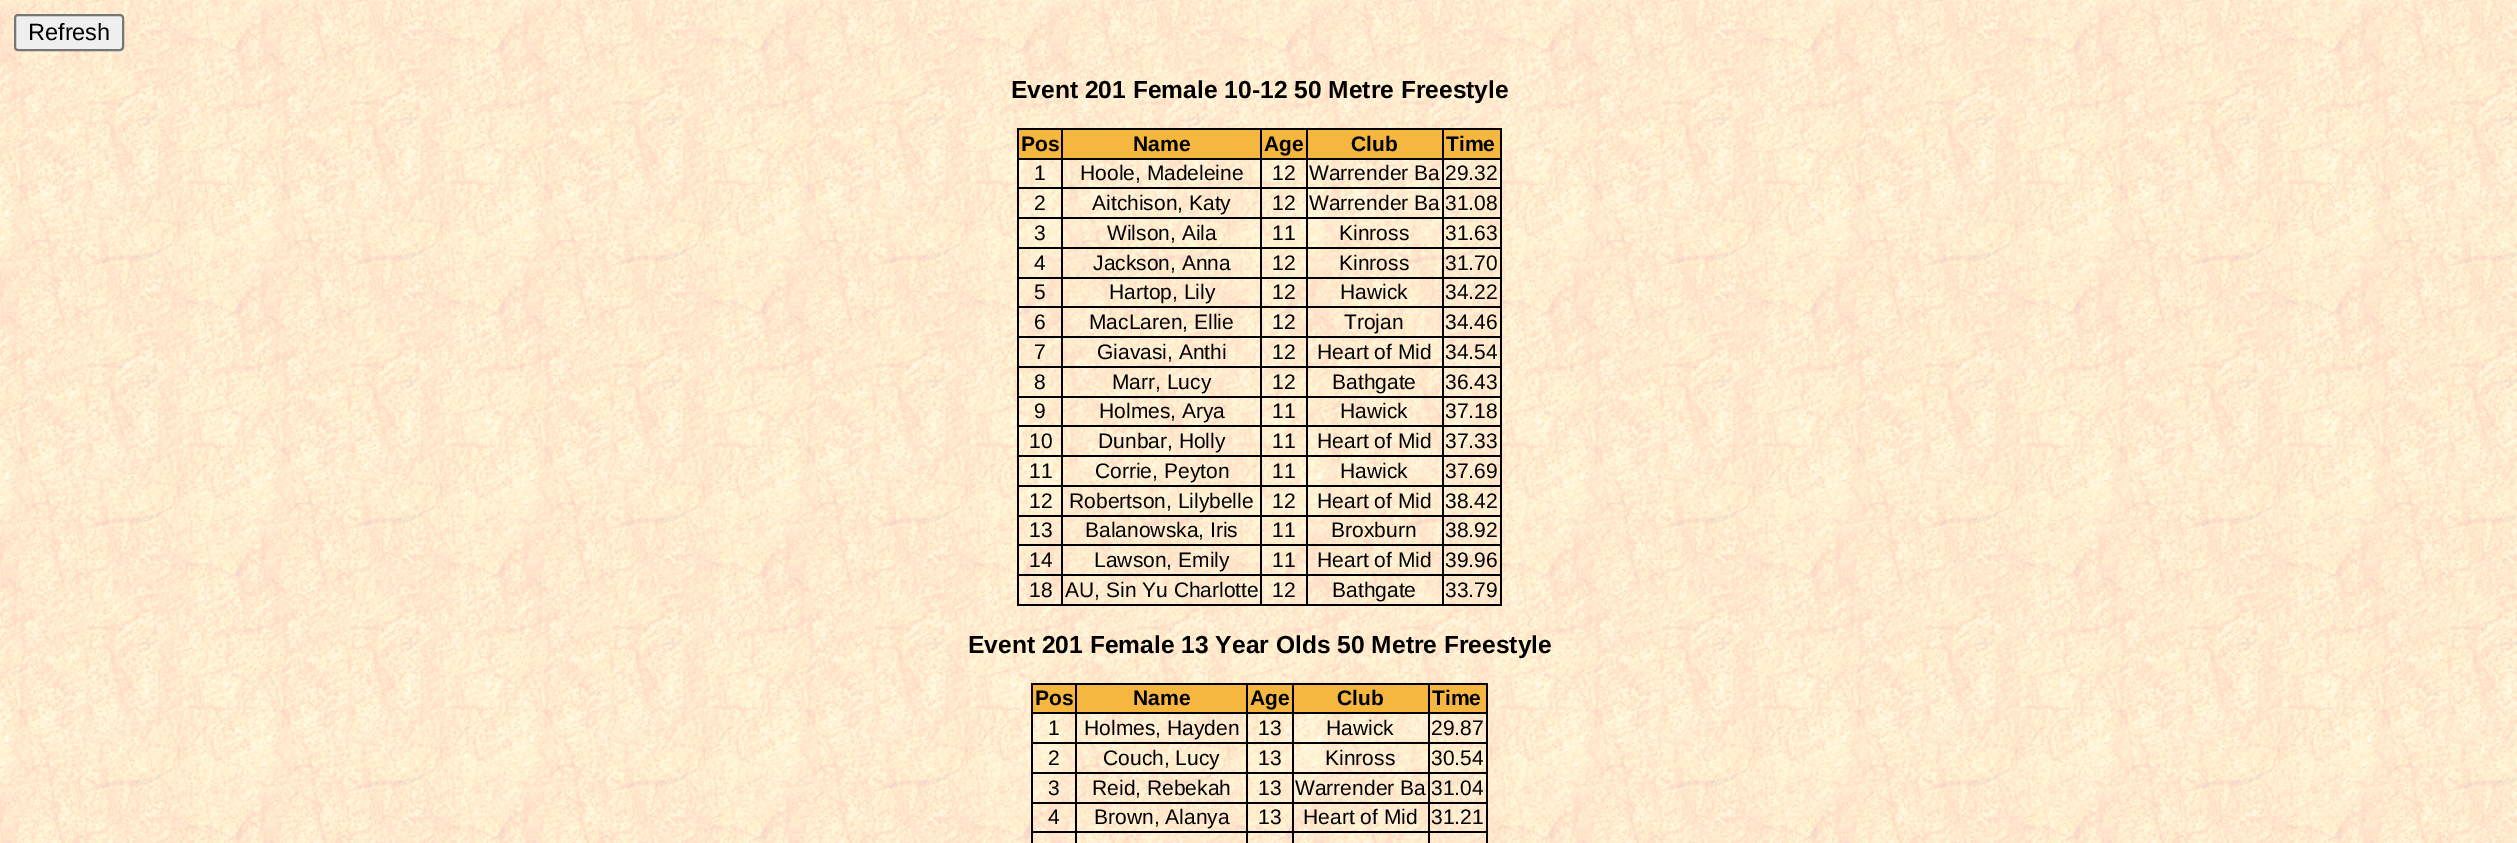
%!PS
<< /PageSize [2517 843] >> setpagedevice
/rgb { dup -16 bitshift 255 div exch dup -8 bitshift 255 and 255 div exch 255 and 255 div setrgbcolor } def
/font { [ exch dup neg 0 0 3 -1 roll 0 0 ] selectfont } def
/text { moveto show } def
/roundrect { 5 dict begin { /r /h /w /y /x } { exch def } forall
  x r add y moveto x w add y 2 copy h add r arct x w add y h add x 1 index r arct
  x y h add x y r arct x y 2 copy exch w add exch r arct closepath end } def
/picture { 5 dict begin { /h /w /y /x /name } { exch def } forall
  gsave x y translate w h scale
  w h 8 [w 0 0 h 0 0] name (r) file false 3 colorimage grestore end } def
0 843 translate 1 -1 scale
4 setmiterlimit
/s1 { /LiberationSans-Regular 23.5 font 16#000000 rgb } def
/s2 { /LiberationSans-Bold 24.6 font 16#000000 rgb } def
/s3 { /LiberationSans-Bold 21 font 16#000000 rgb } def
/s4 { /LiberationSans-Regular 21 font 16#000000 rgb } def
16#FFFFFF rgb
0 0 2517 843 rectfill
(pic1.raw) 0 0 2517 843 picture
16#EFEFEF rgb
15 15 108 35 3 roundrect gsave fill grestore
16#767676 rgb
2 setlinewidth
stroke
s1
(Refresh) 28 40 text
s2
(Event 201 Female 10-12 50 Metre Freestyle) 1011 98 text
1017 128 485 2 rectfill
1500 128 2 478 rectfill
1017 604 485 2 rectfill
1017 128 2 478 rectfill
16#F5B73F rgb
1019 130 42 28 rectfill
s3
(Pos) 1021 151 text
16#F5B73F rgb
1063 130 197 28 rectfill
16#000000 rgb
1442 158 60 2 rectfill
1442 187 60 2 rectfill
1442 217 60 2 rectfill
1442 247 60 2 rectfill
1442 277 60 2 rectfill
1442 306 60 2 rectfill
1442 336 60 2 rectfill
1442 366 60 2 rectfill
1442 396 60 2 rectfill
1442 425 60 2 rectfill
1442 455 60 2 rectfill
1442 485 60 2 rectfill
1442 515 60 2 rectfill
1442 544 60 2 rectfill
1442 574 60 2 rectfill
1442 574 2 32 rectfill
1306 574 138 2 rectfill
1442 544 2 32 rectfill
1306 544 138 2 rectfill
1442 515 2 31 rectfill
1306 515 138 2 rectfill
1442 485 2 31 rectfill
1306 485 138 2 rectfill
1442 455 2 32 rectfill
1306 455 138 2 rectfill
1442 425 2 32 rectfill
1306 425 138 2 rectfill
1442 396 2 31 rectfill
1306 396 138 2 rectfill
1442 366 2 31 rectfill
1306 366 138 2 rectfill
1442 336 2 32 rectfill
1306 336 138 2 rectfill
1442 306 2 32 rectfill
1306 306 138 2 rectfill
1442 277 2 31 rectfill
1306 277 138 2 rectfill
1442 247 2 31 rectfill
1306 247 138 2 rectfill
1442 217 2 32 rectfill
1306 217 138 2 rectfill
1442 187 2 32 rectfill
1306 187 138 2 rectfill
1442 158 2 31 rectfill
1306 158 138 2 rectfill
1306 574 2 32 rectfill
1260 574 47 2 rectfill
1306 544 2 32 rectfill
1260 544 47 2 rectfill
1306 515 2 31 rectfill
1260 515 47 2 rectfill
1306 485 2 31 rectfill
1260 485 47 2 rectfill
1306 455 2 32 rectfill
1260 455 47 2 rectfill
1306 425 2 32 rectfill
1260 425 47 2 rectfill
1306 396 2 31 rectfill
1260 396 47 2 rectfill
1306 366 2 31 rectfill
1260 366 47 2 rectfill
1306 336 2 32 rectfill
1260 336 47 2 rectfill
1306 306 2 32 rectfill
1260 306 47 2 rectfill
1306 277 2 31 rectfill
1260 277 47 2 rectfill
1306 247 2 31 rectfill
1260 247 47 2 rectfill
1306 217 2 32 rectfill
1260 217 47 2 rectfill
1306 187 2 32 rectfill
1260 187 47 2 rectfill
1306 158 2 31 rectfill
1260 158 47 2 rectfill
1260 574 2 32 rectfill
1061 574 201 2 rectfill
1260 544 2 32 rectfill
1061 544 201 2 rectfill
1260 515 2 31 rectfill
1061 515 201 2 rectfill
1260 485 2 31 rectfill
1061 485 201 2 rectfill
1260 455 2 32 rectfill
1061 455 201 2 rectfill
1260 425 2 32 rectfill
1061 425 201 2 rectfill
1260 396 2 31 rectfill
1061 396 201 2 rectfill
1260 366 2 31 rectfill
1061 366 201 2 rectfill
1260 336 2 32 rectfill
1061 336 201 2 rectfill
1260 306 2 32 rectfill
1061 306 201 2 rectfill
1260 277 2 31 rectfill
1061 277 201 2 rectfill
1260 247 2 31 rectfill
1061 247 201 2 rectfill
1260 217 2 32 rectfill
1061 217 201 2 rectfill
1260 187 2 32 rectfill
1061 187 201 2 rectfill
1260 158 2 31 rectfill
1061 158 201 2 rectfill
1061 574 2 32 rectfill
1017 574 45 2 rectfill
1061 544 2 32 rectfill
1017 544 45 2 rectfill
1061 515 2 31 rectfill
1017 515 45 2 rectfill
1061 485 2 31 rectfill
1017 485 45 2 rectfill
1061 455 2 32 rectfill
1017 455 45 2 rectfill
1061 425 2 32 rectfill
1017 425 45 2 rectfill
1061 396 2 31 rectfill
1017 396 45 2 rectfill
1061 366 2 31 rectfill
1017 366 45 2 rectfill
1061 336 2 32 rectfill
1017 336 45 2 rectfill
1061 306 2 32 rectfill
1017 306 45 2 rectfill
1061 277 2 31 rectfill
1017 277 45 2 rectfill
1061 247 2 31 rectfill
1017 247 45 2 rectfill
1061 217 2 32 rectfill
1017 217 45 2 rectfill
1061 187 2 32 rectfill
1017 187 45 2 rectfill
1061 158 2 31 rectfill
1017 158 45 2 rectfill
1061 128 2 31 rectfill
(Name) 1133 151 text
16#F5B73F rgb
1262 130 44 28 rectfill
16#000000 rgb
1260 128 2 31 rectfill
(Age) 1264 151 text
16#F5B73F rgb
1308 130 134 28 rectfill
16#000000 rgb
1306 128 2 31 rectfill
(Club) 1351 151 text
16#F5B73F rgb
1444 130 56 28 rectfill
16#000000 rgb
1442 128 2 31 rectfill
(Time) 1446 151 text
s4
(1) 1034 180 text
(Hoole, Madeleine) 1080 180 text
(12) 1272 180 text
(Warrender Ba) 1309 180 text
(29.32) 1445 180 text
(2) 1034 210 text
(Aitchison, Katy) 1092 210 text
(12) 1272 210 text
(Warrender Ba) 1309 210 text
(31.08) 1445 210 text
(3) 1034 240 text
(Wilson, Aila) 1107 240 text
(11) 1272 240 text
(Kinross) 1339 240 text
(31.63) 1445 240 text
(4) 1034 270 text
(Jackson, Anna) 1093 270 text
(12) 1272 270 text
(Kinross) 1339 270 text
(31.70) 1445 270 text
(5) 1034 299 text
(Hartop, Lily) 1109 299 text
(12) 1272 299 text
(Hawick) 1340 299 text
(34.22) 1445 299 text
(6) 1034 329 text
(MacLaren, Ellie) 1089 329 text
(12) 1272 329 text
(Trojan) 1344 329 text
(34.46) 1445 329 text
(7) 1034 359 text
(Giavasi, Anthi) 1097 359 text
(12) 1272 359 text
(Heart of Mid) 1317 359 text
(34.54) 1445 359 text
(8) 1034 389 text
(Marr, Lucy) 1112 389 text
(12) 1272 389 text
(Bathgate) 1332 389 text
(36.43) 1445 389 text
(9) 1034 418 text
(Holmes, Arya) 1099 418 text
(11) 1272 418 text
(Hawick) 1340 418 text
(37.18) 1445 418 text
(10) 1029 448 text
(Dunbar, Holly) 1098 448 text
(11) 1272 448 text
(Heart of Mid) 1317 448 text
(37.33) 1445 448 text
(11) 1029 478 text
(Corrie, Peyton) 1095 478 text
(11) 1272 478 text
(Hawick) 1340 478 text
(37.69) 1445 478 text
(12) 1029 508 text
(Robertson, Lilybelle) 1069 508 text
(12) 1272 508 text
(Heart of Mid) 1317 508 text
(38.42) 1445 508 text
(13) 1029 537 text
(Balanowska, Iris) 1085 537 text
(11) 1272 537 text
(Broxburn) 1331 537 text
(38.92) 1445 537 text
(14) 1029 567 text
(Lawson, Emily) 1094 567 text
(11) 1272 567 text
(Heart of Mid) 1317 567 text
(39.96) 1445 567 text
(18) 1029 597 text
(AU, Sin Yu Charlotte) 1065 597 text
(12) 1272 597 text
(Bathgate) 1332 597 text
(33.79) 1445 597 text
s2
(Event 201 Female 13 Year Olds 50 Metre Freestyle) 968 653 text
1031 683 457 2 rectfill
1486 683 2 160 rectfill
1031 683 2 160 rectfill
16#F5B73F rgb
1033 685 42 27 rectfill
s3
(Pos) 1035 705 text
16#F5B73F rgb
1077 685 169 27 rectfill
16#000000 rgb
1428 712 60 2 rectfill
1428 742 60 2 rectfill
1428 772 60 2 rectfill
1428 802 60 2 rectfill
1428 831 60 2 rectfill
1428 831 2 12 rectfill
1292 831 138 2 rectfill
1428 802 2 31 rectfill
1292 802 138 2 rectfill
1428 772 2 31 rectfill
1292 772 138 2 rectfill
1428 742 2 32 rectfill
1292 742 138 2 rectfill
1428 712 2 32 rectfill
1292 712 138 2 rectfill
1292 831 2 12 rectfill
1246 831 47 2 rectfill
1292 802 2 31 rectfill
1246 802 47 2 rectfill
1292 772 2 31 rectfill
1246 772 47 2 rectfill
1292 742 2 32 rectfill
1246 742 47 2 rectfill
1292 712 2 32 rectfill
1246 712 47 2 rectfill
1246 831 2 12 rectfill
1075 831 173 2 rectfill
1246 802 2 31 rectfill
1075 802 173 2 rectfill
1246 772 2 31 rectfill
1075 772 173 2 rectfill
1246 742 2 32 rectfill
1075 742 173 2 rectfill
1246 712 2 32 rectfill
1075 712 173 2 rectfill
1075 831 2 12 rectfill
1031 831 45 2 rectfill
1075 802 2 31 rectfill
1031 802 45 2 rectfill
1075 772 2 31 rectfill
1031 772 45 2 rectfill
1075 742 2 32 rectfill
1031 742 45 2 rectfill
1075 712 2 32 rectfill
1031 712 45 2 rectfill
1075 683 2 31 rectfill
(Name) 1133 705 text
16#F5B73F rgb
1248 685 44 27 rectfill
16#000000 rgb
1246 683 2 31 rectfill
(Age) 1250 705 text
16#F5B73F rgb
1294 685 134 27 rectfill
16#000000 rgb
1292 683 2 31 rectfill
(Club) 1337 705 text
16#F5B73F rgb
1430 685 56 27 rectfill
16#000000 rgb
1428 683 2 31 rectfill
(Time) 1432 705 text
s4
(1) 1048 735 text
(Holmes, Hayden) 1084 735 text
(13) 1258 735 text
(Hawick) 1326 735 text
(29.87) 1431 735 text
(2) 1048 765 text
(Couch, Lucy) 1103 765 text
(13) 1258 765 text
(Kinross) 1325 765 text
(30.54) 1431 765 text
(3) 1048 795 text
(Reid, Rebekah) 1092 795 text
(13) 1258 795 text
(Warrender Ba) 1295 795 text
(31.04) 1431 795 text
(4) 1048 824 text
(Brown, Alanya) 1094 824 text
(13) 1258 824 text
(Heart of Mid) 1303 824 text
(31.21) 1431 824 text
showpage
